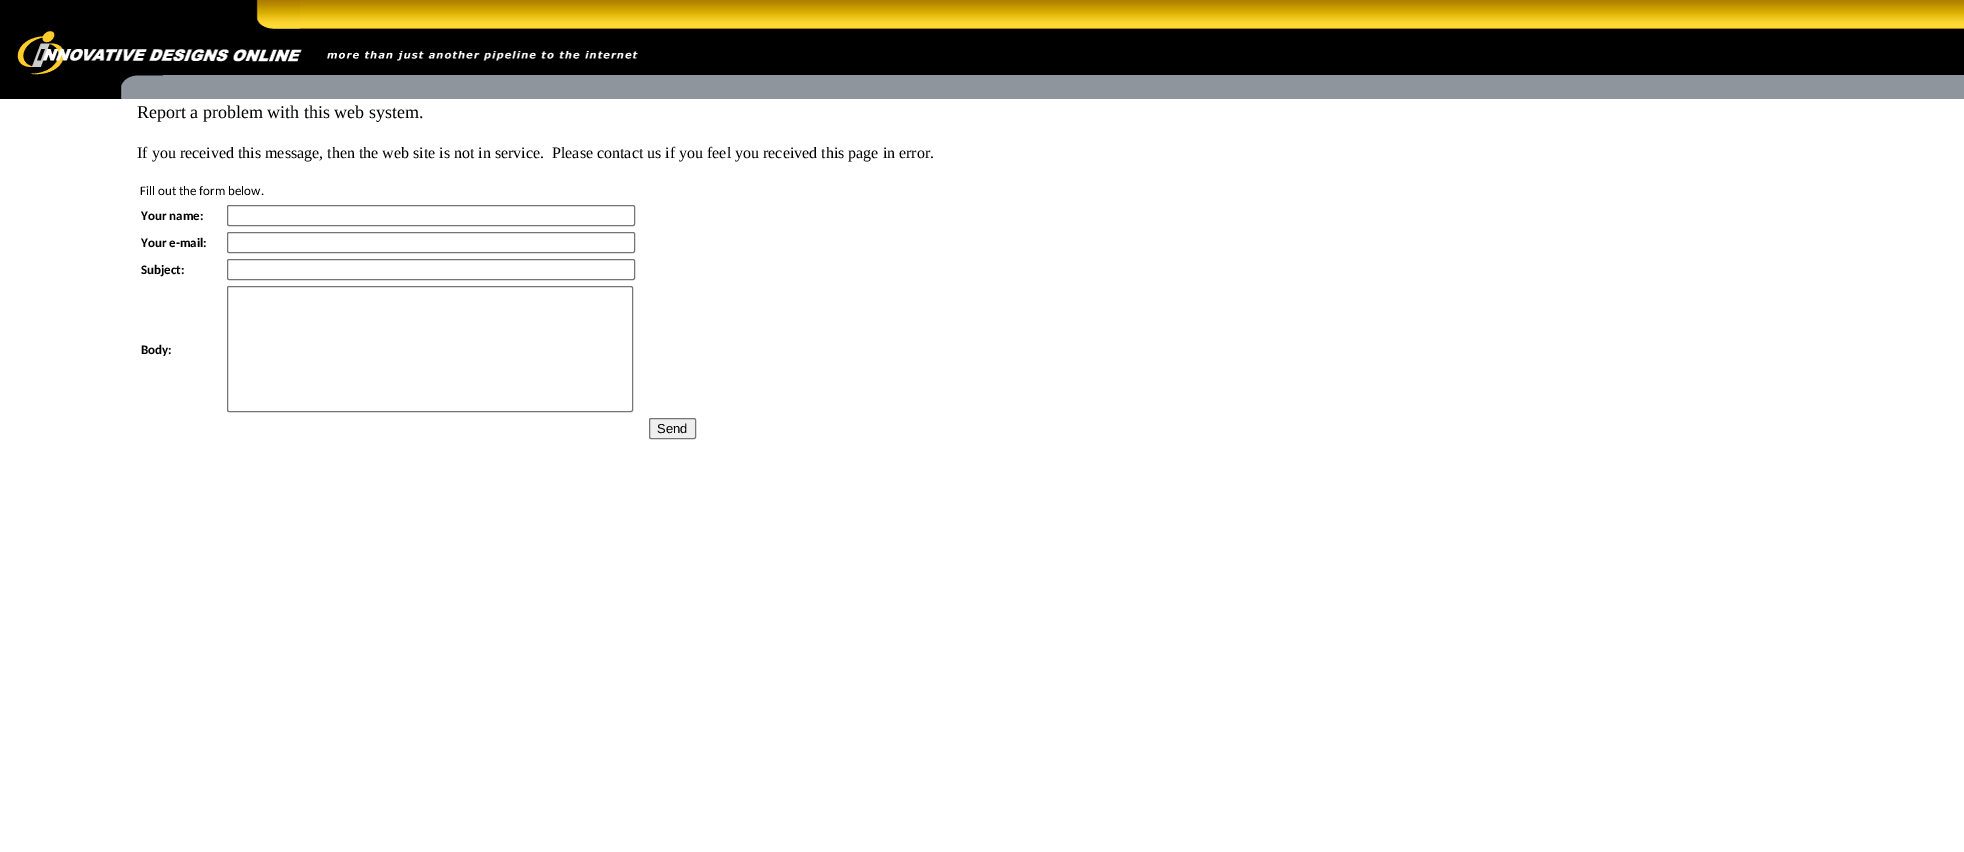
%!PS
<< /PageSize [1964 852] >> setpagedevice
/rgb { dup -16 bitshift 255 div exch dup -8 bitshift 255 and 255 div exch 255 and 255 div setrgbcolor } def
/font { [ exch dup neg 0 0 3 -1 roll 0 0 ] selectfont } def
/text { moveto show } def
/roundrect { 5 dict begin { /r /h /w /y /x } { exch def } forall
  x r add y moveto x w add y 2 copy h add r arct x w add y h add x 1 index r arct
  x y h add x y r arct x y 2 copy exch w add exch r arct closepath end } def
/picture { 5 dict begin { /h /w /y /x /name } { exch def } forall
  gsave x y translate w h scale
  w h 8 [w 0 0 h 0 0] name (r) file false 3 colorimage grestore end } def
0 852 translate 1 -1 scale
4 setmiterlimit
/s1 { /LiberationSerif-Regular 18 font 16#000000 rgb } def
/s2 { /LiberationSerif-Regular 16 font 16#000000 rgb } def
/s3 { /Carlito-Regular 13 font 16#000000 rgb } def
/s4 { /Carlito-Bold 13 font 16#000000 rgb } def
/s5 { /LiberationSans-Regular 13 font 16#000000 rgb } def
16#FFFFFF rgb
0 0 1964 852 rectfill
(pic1.raw) 300 0 1664 29 picture
(pic2.raw) 0 0 300 29 picture
16#000000 rgb
0 29 1964 46 rectfill
(pic3.raw) 17 31 621 44 picture
16#8E959D rgb
163 75 1801 24 rectfill
(pic4.raw) 0 75 163 24 picture
s1
(Report a problem with this web system.) 137 118 text
s2
(If you received this message, then the web site is not in service.  Please contact us if you feel you received this page in error.) 137 158 text
s3
(Fill out the form below.) 140 195 text
s4
(Your name:) 141 220 text
16#767676 rgb
227.5 205.5 407 20 1.5 roundrect stroke
s4
(Your e-mail:) 141 247 text
16#767676 rgb
227.5 232.5 407 20 1.5 roundrect stroke
s4
(Subject:) 141 274 text
16#767676 rgb
227.5 259.5 407 20 1.5 roundrect stroke
s4
(Body:) 141 354 text
16#767676 rgb
227.5 286.5 405 125 1.5 roundrect stroke
16#EFEFEF rgb
649.5 418.5 46 20 1.5 roundrect gsave fill grestore
16#767676 rgb
stroke
s5
(Send) 657 433 text
showpage
